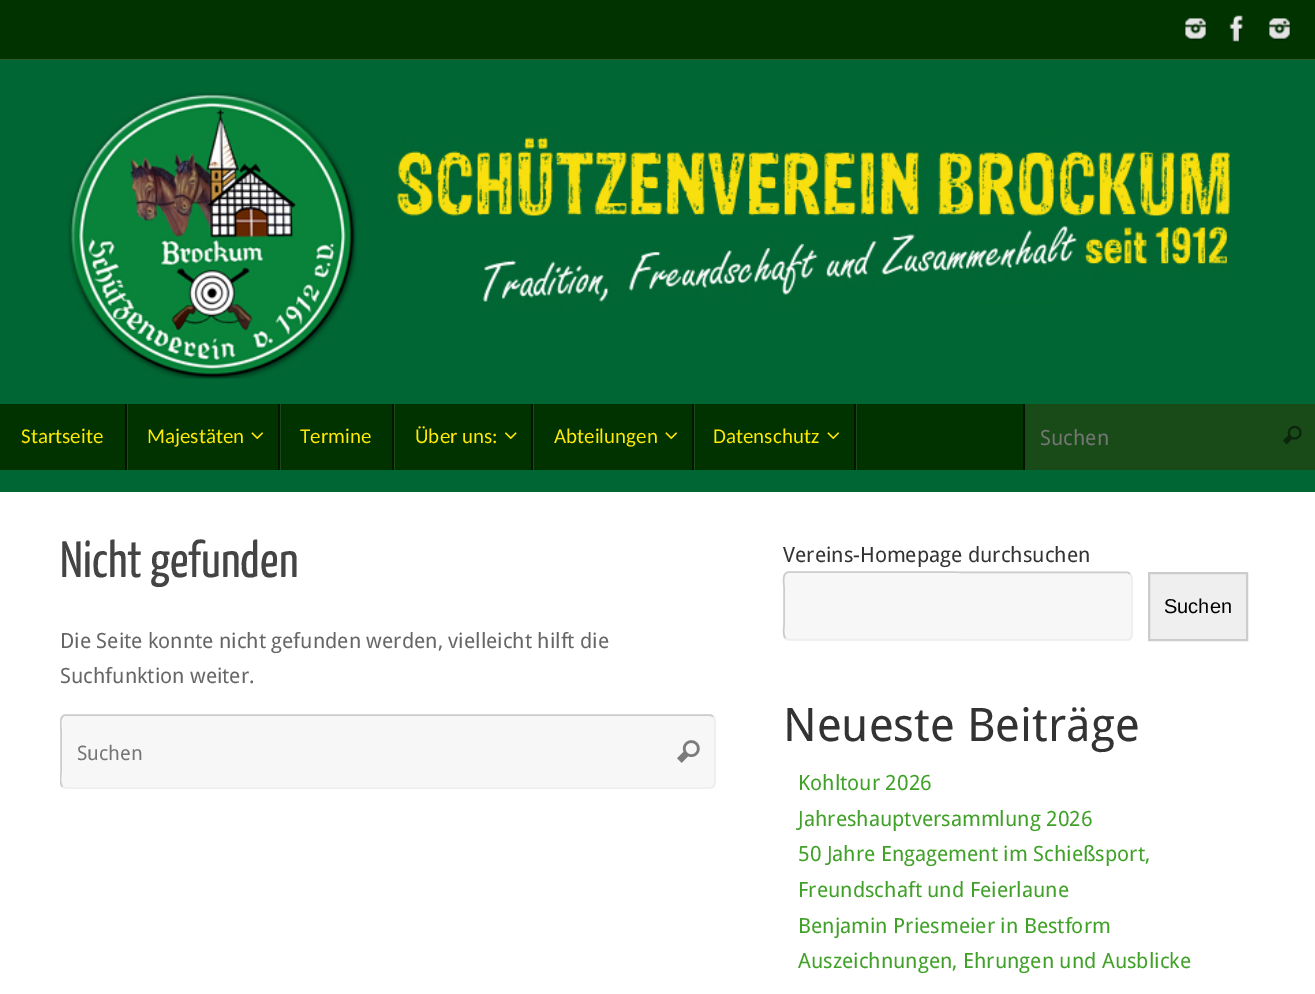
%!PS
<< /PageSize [1315 994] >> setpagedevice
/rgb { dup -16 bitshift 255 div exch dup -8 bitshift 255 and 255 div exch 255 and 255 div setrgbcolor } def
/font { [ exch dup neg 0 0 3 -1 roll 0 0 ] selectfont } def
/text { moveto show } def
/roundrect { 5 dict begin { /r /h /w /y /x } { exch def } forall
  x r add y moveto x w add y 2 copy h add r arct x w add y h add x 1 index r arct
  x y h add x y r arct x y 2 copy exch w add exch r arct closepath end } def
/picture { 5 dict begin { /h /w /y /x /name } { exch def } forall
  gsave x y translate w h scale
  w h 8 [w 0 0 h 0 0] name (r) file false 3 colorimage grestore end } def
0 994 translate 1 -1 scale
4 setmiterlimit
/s1 { /Carlito-Regular 21 font 16#FFE905 rgb } def
/s2 { /DroidSans-Regular 21 font 16#757575 rgb } def
/s3 { /YanoneKaffeesatz-Regular 51 font 16#444444 rgb } def
/s4 { /DroidSans-Regular 21 font 16#666666 rgb } def
/s5 { /DroidSans-Regular 20 font 16#757575 rgb } def
/s6 { /DroidSans-Regular 21 font 16#333333 rgb } def
/s7 { /LiberationSans-Regular 20 font 16#000000 rgb } def
/s8 { /DroidSans-Regular 46.25 font 16#333333 rgb } def
/s9 { /DroidSans-Regular 21 font 16#40A128 rgb } def
16#006633 rgb
0 0 1315 994 rectfill
16#003300 rgb
0 0 1315 59 rectfill
16#285B28 rgb
0 59 1315 1 rectfill
(pic1.raw) 1184 18 23 23 picture
(pic2.raw) 1229 15 14 28 picture
(pic1.raw) 1268 18 23 23 picture
(pic3.raw) 0 60 1315 319 picture
16#003300 rgb
0 404 1023 66 rectfill
16#184B18 rgb
2 470 moveto 128 470 lineto 128 404 lineto 126 404 lineto 126 470 lineto closepath fill
16#001500 rgb
125 404 2 66 rectfill
s1
(Startseite) 21 443 text
16#184B18 rgb
128 470 moveto 281 470 lineto 281 404 lineto 279 404 lineto 279 470 lineto closepath fill
16#001500 rgb
278 404 2 66 rectfill
s1
(Majestäten) 147 443 text
(pic4.raw) 251 432 13 8 picture
16#184B18 rgb
281 470 moveto 395 470 lineto 395 404 lineto 393 404 lineto 393 470 lineto closepath fill
16#001500 rgb
392 404 2 66 rectfill
s1
(Termine) 300 443 text
16#184B18 rgb
395 470 moveto 534 470 lineto 534 404 lineto 532 404 lineto 532 470 lineto closepath fill
16#001500 rgb
531 404 2 66 rectfill
s1
(Über uns:) 415 443 text
(pic5.raw) 505 432 12 8 picture
16#184B18 rgb
534 470 moveto 695 470 lineto 695 404 lineto 693 404 lineto 693 470 lineto closepath fill
16#001500 rgb
692 404 2 66 rectfill
s1
(Abteilungen) 554 443 text
(pic4.raw) 665 432 13 8 picture
16#184B18 rgb
695 470 moveto 857 470 lineto 857 404 lineto 855 404 lineto 855 470 lineto closepath fill
16#001500 rgb
854 404 2 66 rectfill
s1
(Datenschutz) 713 443 text
(pic4.raw) 827 432 13 8 picture
16#184B18 rgb
1025 404 290 66 rectfill
16#001500 rgb
1023 404 2 66 rectfill
s2
(Suchen) 1040 445 text
(pic6.raw) 1283 425 19 20 picture
16#FFFFFF rgb
0 492 1315 502 rectfill
s3
(Nicht gefunden) 60 577 text
s4
(Die Seite konnte nicht gefunden werden, vielleicht hilft die) 60 648 text
(Suchfunktion weiter.) 60 683 text
16#F7F7F7 rgb
60 714 656 75 6 roundrect fill
16#EEEEEE rgb
1.5 setlinewidth
713 716.5 moveto 716.5 719.5 715 728.5 715 730.5 curveto 715 772.5 lineto 715 776 717 788 709.5 788 curveto 65 788 lineto 62.5 786.5 lineto stroke
gsave
60 714 656 75 rectclip
16#CCCCCC rgb
62.5 786.5 moveto 59 783.5 61 774.5 61 772.5 curveto 61 730.5 lineto 61 727 58.5 715 66 715 curveto 710.5 715 lineto 713 716.5 lineto stroke
grestore
s5
(Suchen) 77 760 text
(pic7.raw) 677 740 23 23 picture
s6
(Vereins-Homepage durchsuchen) 783 562 text
16#F7F7F7 rgb
783 572 350 69 6 roundrect fill
16#EEEEEE rgb
1130 574 moveto 1133 577 1132 584.5 1132 587 curveto 1132 625 lineto 1132 629 1134 639.5 1126.5 640 curveto 787.5 639.5 lineto 785.5 638 lineto stroke
16#CCCCCC rgb
785.5 638 moveto 782.5 635 784 627.5 784 625 curveto 784 587 lineto 784 583 781.5 572.5 789 572 curveto 1128 572.5 lineto 1130 574 lineto stroke
16#EFEFEF rgb
1149 573 moveto 1247 573 lineto 1247 640 lineto 1149 640 lineto closepath gsave fill grestore
16#CCCCCC rgb
2 setlinewidth
stroke
s7
(Suchen) 1164 613 text
s8
(Neueste Beiträge) 783 741 text
s9
(Kohltour 2026) 798 790 text
(Jahreshauptversammlung 2026) 798 826 text
(50 Jahre Engagement im Schießsport,) 798 861 text
(Freundschaft und Feierlaune) 798 897 text
(Benjamin Priesmeier in Bestform) 798 933 text
(Auszeichnungen, Ehrungen und Ausblicke) 798 968 text
showpage
